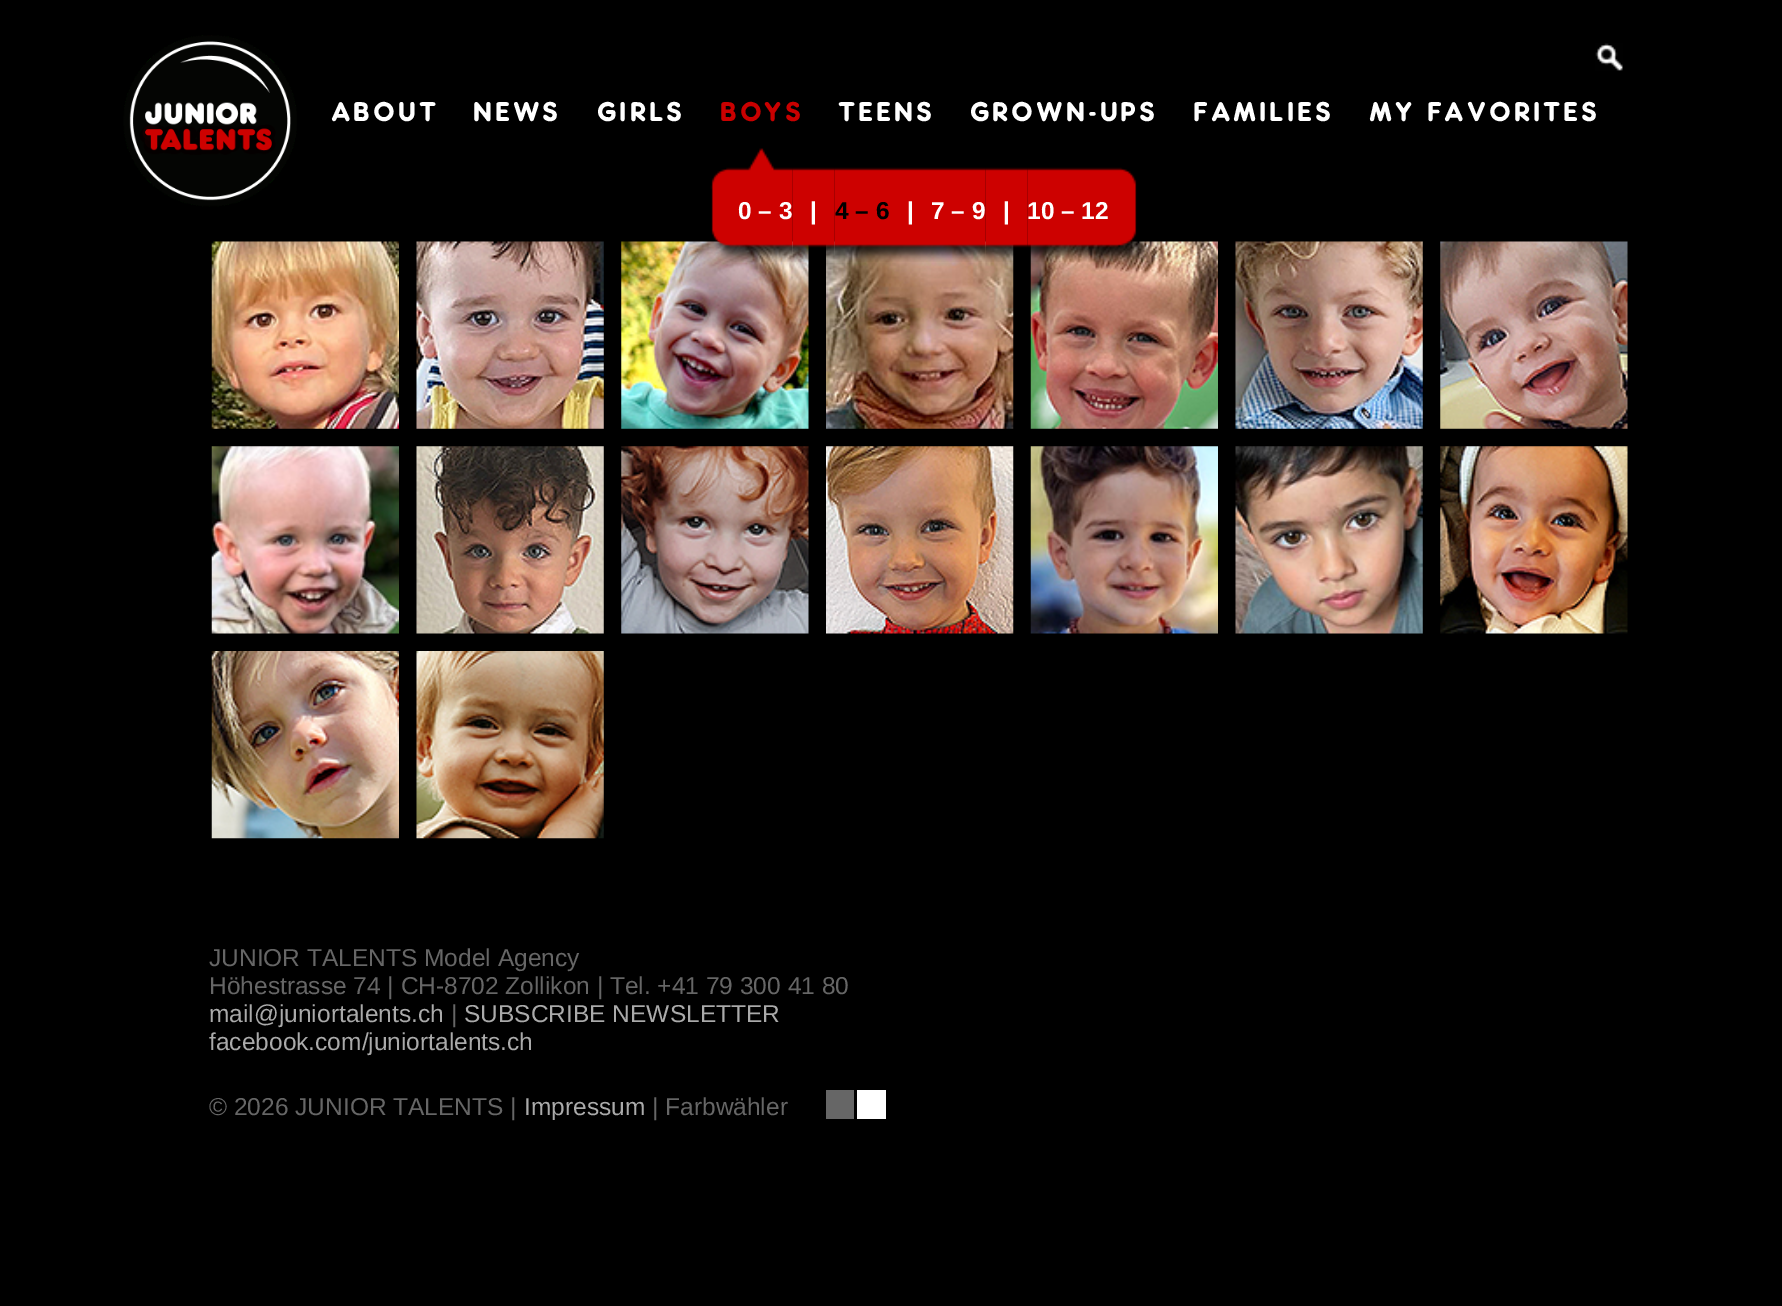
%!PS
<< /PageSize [1782 1306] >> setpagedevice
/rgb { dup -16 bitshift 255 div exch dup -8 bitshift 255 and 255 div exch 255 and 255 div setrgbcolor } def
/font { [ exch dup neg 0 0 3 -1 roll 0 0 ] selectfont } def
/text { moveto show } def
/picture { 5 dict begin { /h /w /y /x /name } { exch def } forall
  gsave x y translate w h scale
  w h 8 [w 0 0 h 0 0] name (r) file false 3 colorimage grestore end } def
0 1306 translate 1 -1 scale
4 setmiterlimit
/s1 { /LiberationSans-Bold 24.5 font 16#FFFFFF rgb } def
/s2 { /LiberationSans-Bold 24.5 font 16#000000 rgb } def
/s3 { /LiberationSans-Regular 24.5 font 16#666666 rgb } def
/s4 { /LiberationSans-Regular 24.5 font 16#AAAAAA rgb } def
16#000000 rgb
0 0 1782 1306 rectfill
(pic1.raw) 123 35 174 172 picture
(pic2.raw) 1595 43 28 28 picture
/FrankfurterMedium-Medium 24.5 font
16#FFFFFF rgb
332 121 moveto 4.9 0 (ABOUT) ashow
474 121 moveto 4.9 0 (NEWS) ashow
598 121 moveto 4.9 0 (GIRLS) ashow
16#C90000 rgb
721 121 moveto 4.9 0 (BOYS) ashow
(pic12.raw) 621 241 188 188 picture
(pic3.raw) 710 148 83 114 picture
s1
(0 – 3) 738 219 text
(pic13.raw) 826 241 188 188 picture
(pic4.raw) 792 167 43 95 picture
(|) 810 219 text
(pic5.raw) 834 167 55 95 picture
s2
(4 – 6) 835 219 text
(pic6.raw) 889 167 42 95 picture
s1
(|) 907 219 text
(pic7.raw) 931 167 55 95 picture
(7 – 9) 931 219 text
(pic8.raw) 985 167 43 95 picture
(|) 1003 219 text
(pic14.raw) 1030 241 188 188 picture
(pic9.raw) 1027 167 121 95 picture
(10 – 12) 1027 219 text
/FrankfurterMedium-Medium 24.5 font
839 121 moveto 4.9 0 (TEENS) ashow
971 121 moveto 4.9 0 (GROWN-UPS) ashow
1194 121 moveto 4.9 0 (FAMILIES) ashow
1370 121 moveto 4.9 0 (MY FAVORITES) ashow
(pic10.raw) 211 241 188 188 picture
(pic11.raw) 416 241 188 188 picture
(pic15.raw) 1235 241 188 188 picture
(pic16.raw) 1440 241 188 188 picture
(pic17.raw) 211 446 188 188 picture
(pic18.raw) 416 446 188 188 picture
(pic19.raw) 621 446 188 188 picture
(pic20.raw) 826 446 188 188 picture
(pic21.raw) 1030 446 188 188 picture
(pic22.raw) 1235 446 188 188 picture
(pic23.raw) 1440 446 188 188 picture
(pic24.raw) 211 651 188 188 picture
(pic25.raw) 416 651 188 188 picture
s3
(JUNIOR TALENTS Model Agency) 209 966 text
(Höhestrasse 74 | CH-8702 Zollikon | Tel. +41 79 300 41 80) 209 994 text
s4
(mail@juniortalents.ch) 209 1022 text
s3
(|) 451 1022 text
s4
(SUBSCRIBE NEWSLETTER) 464 1022 text
(facebook.com/juniortalents.ch) 209 1050 text
s3
(© 2026 JUNIOR TALENTS |) 209 1115 text
s4
(Impressum) 524 1115 text
s3
(| Farbwähler) 652 1115 text
826 1090 28 29 rectfill
16#FFFFFF rgb
857 1090 29 29 rectfill
showpage
